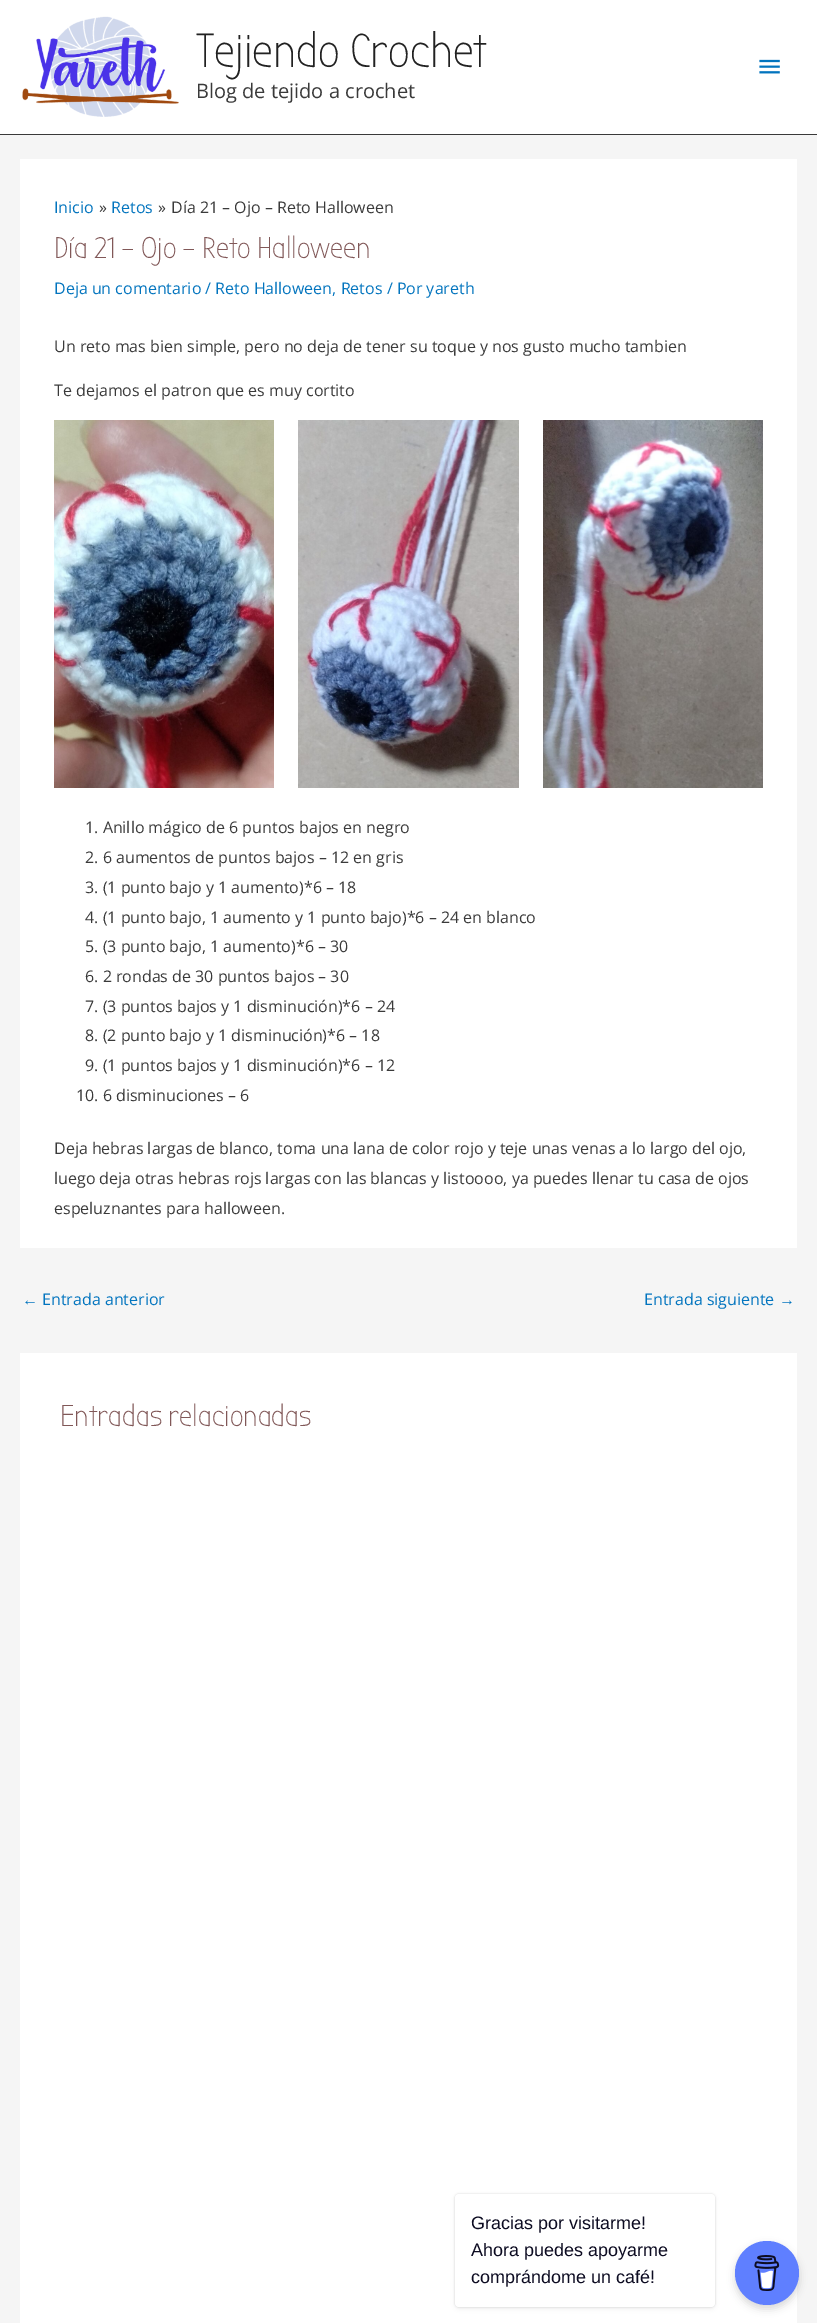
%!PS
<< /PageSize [817 2323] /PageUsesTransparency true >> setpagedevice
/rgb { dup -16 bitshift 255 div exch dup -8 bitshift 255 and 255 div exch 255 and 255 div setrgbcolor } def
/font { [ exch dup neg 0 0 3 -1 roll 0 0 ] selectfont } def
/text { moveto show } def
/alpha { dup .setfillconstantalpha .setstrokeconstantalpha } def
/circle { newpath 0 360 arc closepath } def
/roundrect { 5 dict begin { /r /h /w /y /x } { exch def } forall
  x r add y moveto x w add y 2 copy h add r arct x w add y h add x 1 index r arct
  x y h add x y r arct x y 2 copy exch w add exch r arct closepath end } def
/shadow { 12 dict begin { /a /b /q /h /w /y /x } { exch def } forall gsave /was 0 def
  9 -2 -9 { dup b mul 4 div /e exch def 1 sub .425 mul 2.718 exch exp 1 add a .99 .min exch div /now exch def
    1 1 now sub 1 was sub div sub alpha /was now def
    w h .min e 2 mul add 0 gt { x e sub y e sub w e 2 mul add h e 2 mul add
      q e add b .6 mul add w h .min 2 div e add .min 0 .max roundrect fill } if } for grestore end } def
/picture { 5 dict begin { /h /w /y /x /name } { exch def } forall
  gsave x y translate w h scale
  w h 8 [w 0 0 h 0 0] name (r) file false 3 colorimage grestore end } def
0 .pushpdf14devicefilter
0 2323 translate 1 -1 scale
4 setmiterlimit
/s1 { /BubblerOne-Regular 48 font 16#222222 rgb } def
/s2 { /OpenSans-Regular 20 font 16#3A3A3A rgb } def
/s3 { /OpenSans-Regular 16 font 16#0274BE rgb } def
/s4 { /OpenSans-Regular 16 font 16#3A3A3A rgb } def
/s5 { /BubblerOne-Regular 30 font 16#815858 rgb } def
/s6 { /LiberationSans-Regular 16 font 16#0274BE rgb } def
/s7 { /LiberationSans-Regular 18 font 16#0D0C22 rgb } def
16#F5F5F5 rgb
0 0 817 2323 rectfill
16#FFFFFF rgb
0 0 817 134 rectfill
16#3A3A3A rgb
0 134 817 1 rectfill
(pic1.raw) 22 16 157 101 picture
s1
(Tejiendo Crochet) 196 67 text
s2
(Blog de tejido a crochet) 196 98 text
(pic2.raw) 759 59 21 15 picture
16#FFFFFF rgb
20 159 777 1089 rectfill
s3
(Inicio) 54 213 text
s4
(») 99 213 text
s3
(Retos) 111 213 text
s4
(») 158 213 text
(Día 21 – Ojo – Reto Halloween) 171 213 text
s5
(Día 21 – Ojo – Reto Halloween) 54 258 text
s3
(Deja un comentario / Reto Halloween, Retos / Por yareth) 54 294 text
s4
(Un reto mas bien simple, pero no deja de tener su toque y nos gusto mucho tambien) 54 352 text
(Te dejamos el patron que es muy cortito) 54 396 text
(pic3.raw) 54 420 220 368 picture
(pic4.raw) 298 420 221 368 picture
(pic5.raw) 543 420 220 368 picture
(1. Anillo mágico de 6 puntos bajos en negro) 85 833 text
(2. 6 aumentos de puntos bajos – 12 en gris) 85 863 text
(3. \(1 punto bajo y 1 aumento\)*6 – 18) 85 893 text
(4. \(1 punto bajo, 1 aumento y 1 punto bajo\)*6 – 24 en blanco) 85 923 text
(5. \(3 punto bajo, 1 aumento\)*6 – 30) 85 952 text
(6. 2 rondas de 30 puntos bajos – 30) 85 982 text
(7. \(3 puntos bajos y 1 disminución\)*6 – 24) 85 1012 text
(8. \(2 punto bajo y 1 disminución\)*6 – 18) 85 1041 text
(9. \(1 puntos bajos y 1 disminución\)*6 – 12) 85 1071 text
(10. 6 disminuciones – 6) 76 1101 text
(Deja hebras largas de blanco, toma una lana de color rojo y teje unas venas a lo largo del ojo,) 54 1154 text
(luego deja otras hebras rojs largas con las blancas y listoooo, ya puedes llenar tu casa de ojos) 54 1184 text
(espeluznantes para halloween.) 54 1214 text
s6
(←) 22 1305 text
s3
(Entrada anterior) 42 1305 text
(Entrada siguiente) 644 1305 text
s6
(→) 779 1305 text
16#FFFFFF rgb
20 1353 777 970 rectfill
s5
(Entradas relacionadas) 60 1426 text
16#000000 rgb
455 2194 260 113 4 1 0.15 shadow
455 2196 260 113 4 2.5 0.05 shadow
16#FFFFFF rgb
455 2194 260 113 4 roundrect fill
s7
(Gracias por visitarme!) 471 2229 text
(Ahora puedes apoyarme) 471 2256 text
(comprándome un café!) 471 2283 text
16#000000 rgb
735 2245 64 64 32 4 0.15 shadow
16#5F7FFF rgb
767 2273 32 circle fill
(pic6.raw) 754 2255 26 36 picture
.poppdf14devicefilter showpage
